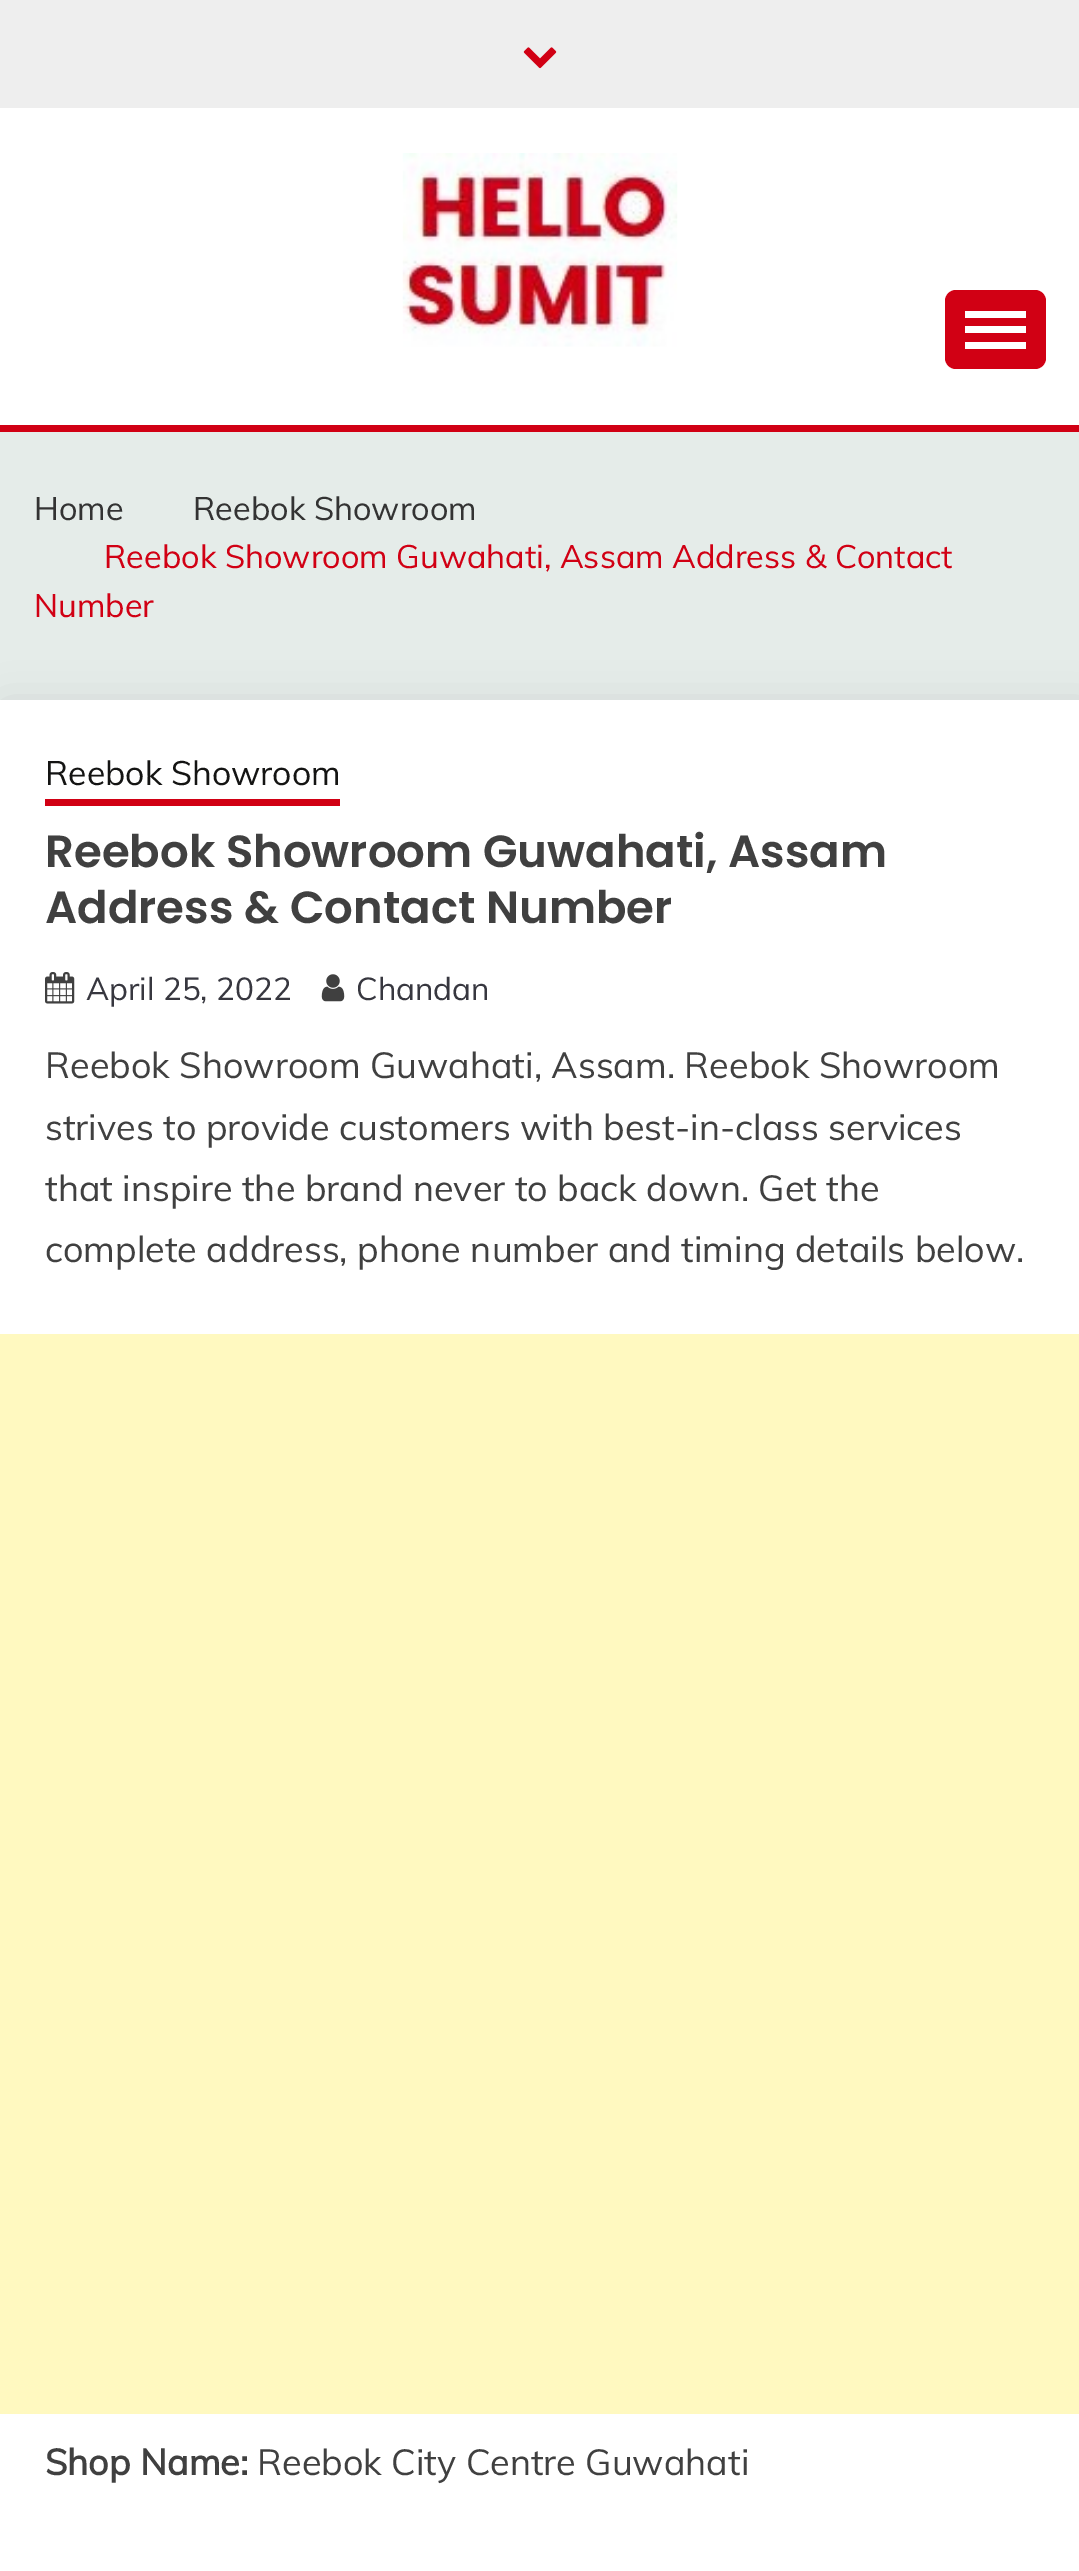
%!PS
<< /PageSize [1079 2571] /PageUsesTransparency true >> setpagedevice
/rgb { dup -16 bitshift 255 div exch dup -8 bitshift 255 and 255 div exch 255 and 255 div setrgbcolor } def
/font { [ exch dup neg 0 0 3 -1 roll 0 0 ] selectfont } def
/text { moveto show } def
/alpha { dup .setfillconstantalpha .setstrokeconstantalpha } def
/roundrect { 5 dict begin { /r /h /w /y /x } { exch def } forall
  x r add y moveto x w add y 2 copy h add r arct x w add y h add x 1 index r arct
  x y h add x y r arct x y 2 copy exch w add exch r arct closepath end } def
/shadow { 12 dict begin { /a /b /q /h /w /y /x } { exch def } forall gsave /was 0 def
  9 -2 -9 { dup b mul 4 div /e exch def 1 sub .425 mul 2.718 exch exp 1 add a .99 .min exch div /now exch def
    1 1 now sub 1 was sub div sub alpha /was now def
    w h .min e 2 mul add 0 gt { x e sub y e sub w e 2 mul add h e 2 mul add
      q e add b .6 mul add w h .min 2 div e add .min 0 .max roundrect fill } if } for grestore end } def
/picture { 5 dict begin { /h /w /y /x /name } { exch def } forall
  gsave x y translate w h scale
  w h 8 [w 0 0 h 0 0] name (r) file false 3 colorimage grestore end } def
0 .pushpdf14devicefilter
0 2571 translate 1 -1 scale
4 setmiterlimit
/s1 { /Muli-Regular 32.4 font 16#333333 rgb } def
/s2 { /Muli-Regular 32.4 font 16#D10014 rgb } def
/s3 { /Muli-Regular 33.75 font 16#141413 rgb } def
/s4 { /Poppins-SemiBold 45 font 16#404040 rgb } def
/s5 { /Muli-Regular 31.5 font 16#37373F rgb } def
/s6 { /Muli-Regular 36 font 16#404040 rgb } def
/s7 { /Muli-Bold 36 font 16#404040 rgb } def
16#E5ECE9 rgb
0 0 1079 2571 rectfill
16#FFFFFF rgb
0 108 1079 317 rectfill
16#EEEEEE rgb
0 0 1079 108 rectfill
(pic1.raw) 523 47 34 22 picture
(pic2.raw) 402 153 276 194 picture
16#D10014 rgb
945 290 101 79 11 roundrect fill
16#FFFFFF rgb
965 311 61 7 rectfill
965 326 61 7 rectfill
965 342 61 7 rectfill
16#D10014 rgb
0 425 1079 7 rectfill
s1
(Home) 34 520 text
(Reebok Showroom) 193 520 text
s2
(Reebok Showroom Guwahati, Assam Address & Contact) 104 568 text
(Number) 34 617 text
16#000000 rgb
5 711 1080 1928 0 22.5 0.14 shadow
16#FFFFFF rgb
0 700 1079 1871 rectfill
s3
(Reebok Showroom) 45 785 text
16#D10014 rgb
45 799 295 7 rectfill
s4
(Reebok Showroom Guwahati, Assam) 45 867 text
(Address & Contact Number) 45 923 text
(pic3.raw) 45 972 30 32 picture
s5
(April 25, 2022) 86 1000 text
(pic4.raw) 321 974 24 28 picture
(Chandan) 356 1000 text
s6
(Reebok Showroom Guwahati, Assam. Reebok Showroom) 45 1078 text
(strives to provide customers with best-in-class services) 45 1140 text
(that inspire the brand never to back down. Get the) 45 1201 text
(complete address, phone number and timing details below.) 45 1262 text
16#FFF9C0 rgb
0 1334 1079 1080 rectfill
s7
(Shop Name:) 45 2475 text
s6
(Reebok City Centre Guwahati) 257 2475 text
.poppdf14devicefilter showpage
